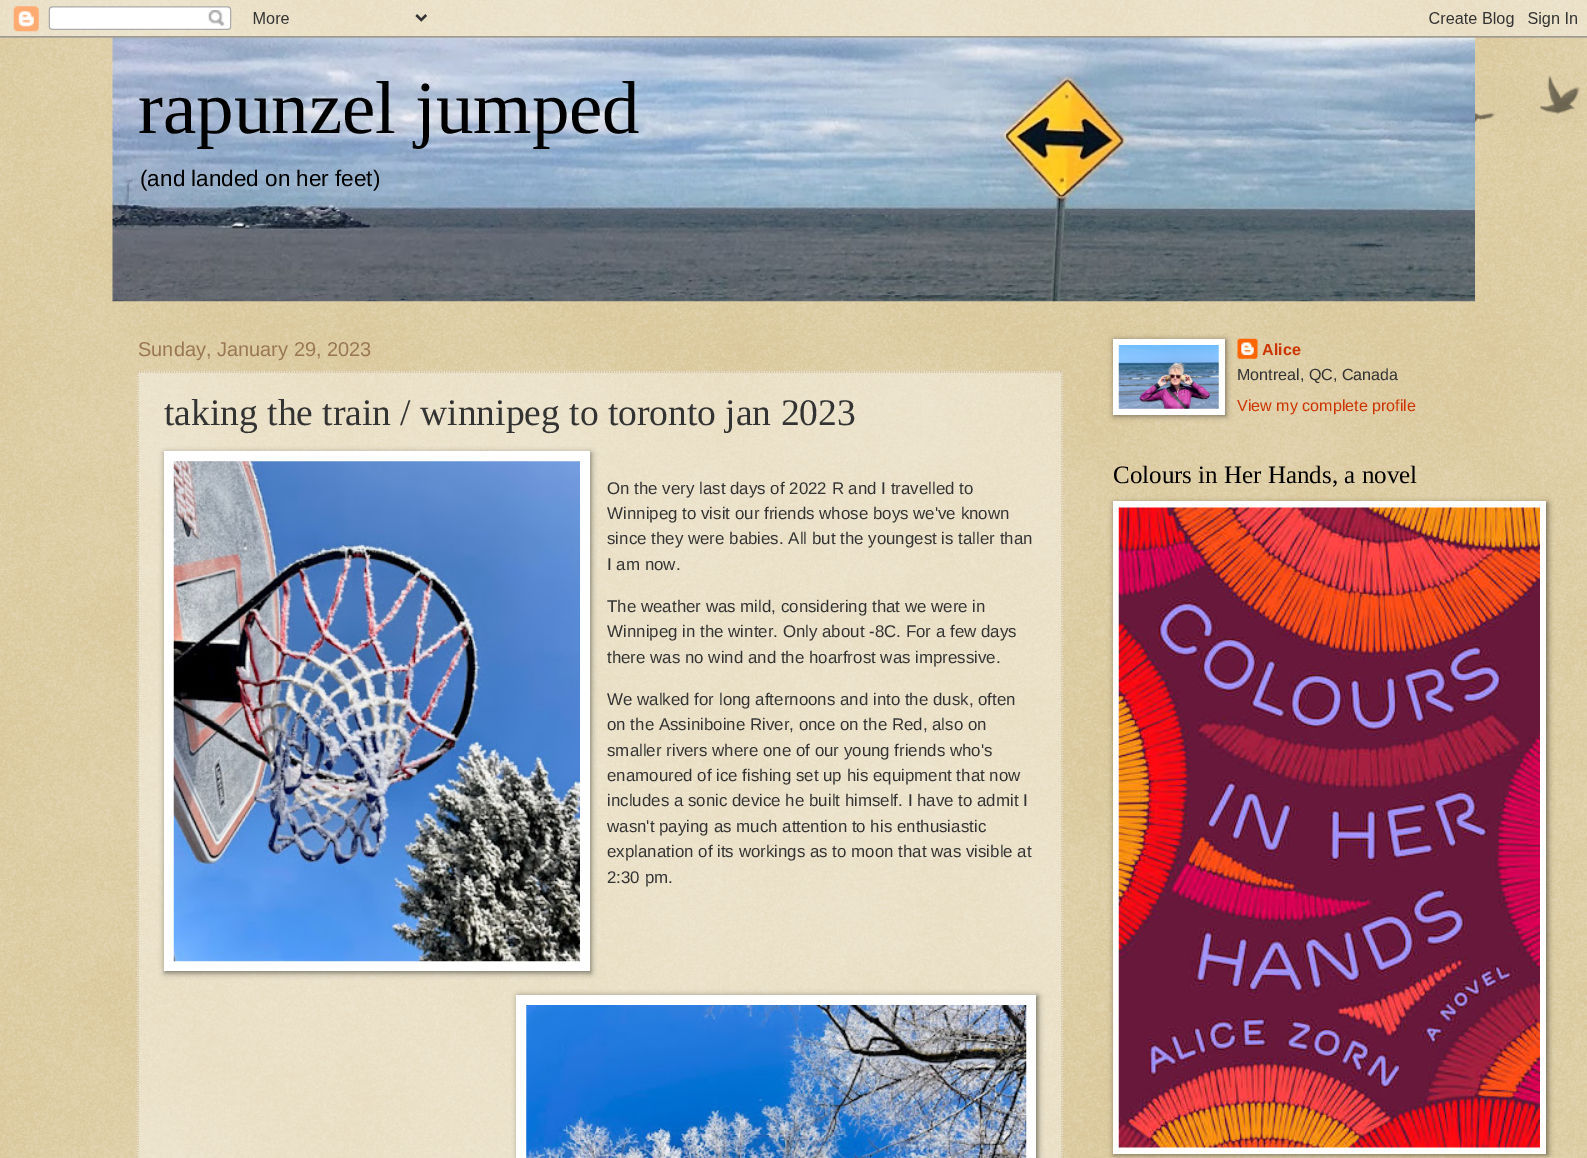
%!PS
<< /PageSize [1587 1158] /PageUsesTransparency true >> setpagedevice
/rgb { dup -16 bitshift 255 div exch dup -8 bitshift 255 and 255 div exch 255 and 255 div setrgbcolor } def
/font { [ exch dup neg 0 0 3 -1 roll 0 0 ] selectfont } def
/text { moveto show } def
/alpha { dup .setfillconstantalpha .setstrokeconstantalpha } def
/roundrect { 5 dict begin { /r /h /w /y /x } { exch def } forall
  x r add y moveto x w add y 2 copy h add r arct x w add y h add x 1 index r arct
  x y h add x y r arct x y 2 copy exch w add exch r arct closepath end } def
/shadow { 12 dict begin { /a /b /q /h /w /y /x } { exch def } forall gsave /was 0 def
  9 -2 -9 { dup b mul 4 div /e exch def 1 sub .425 mul 2.718 exch exp 1 add a .99 .min exch div /now exch def
    1 1 now sub 1 was sub div sub alpha /was now def
    w h .min e 2 mul add 0 gt { x e sub y e sub w e 2 mul add h e 2 mul add
      q e add b .6 mul add w h .min 2 div e add .min 0 .max roundrect fill } if } for grestore end } def
/picture { 5 dict begin { /h /w /y /x /name } { exch def } forall
  gsave x y translate w h scale
  w h 8 [w 0 0 h 0 0] name (r) file false 3 colorimage grestore end } def
0 .pushpdf14devicefilter
0 1158 translate 1 -1 scale
4 setmiterlimit
/s1 { /LiberationSerif-Regular 75 font 16#000000 rgb } def
/s2 { /LiberationSans-Regular 22.5 font 16#000000 rgb } def
/s3 { /LiberationSans-Regular 20 font 16#997755 rgb } def
/s4 { /LiberationSerif-Regular 37.5 font 16#333333 rgb } def
/s5 { /LiberationSans-Regular 16.9 font 16#333333 rgb } def
/s6 { /LiberationSans-Bold 16.1 font 16#CC3300 rgb } def
/s7 { /LiberationSans-Regular 16.1 font 16#333333 rgb } def
/s8 { /LiberationSans-Regular 16.1 font 16#CC3300 rgb } def
/s9 { /LiberationSerif-Regular 25 font 16#000000 rgb } def
16#C0A154 rgb
0 0 1587 1158 rectfill
(pic1.raw) 0 0 1587 1158 picture
(pic3.raw) 112 37 1363 265 picture
(pic2.raw) 0 0 1587 38 picture
s1
(rapunzel jumped) 138 133 text
s2
(\(and landed on her feet\)) 140 186 text
s3
(Sunday, January 29, 2023) 138 356 text
0.4 alpha
16#FFFFFF rgb
137 371 926 787 rectfill
1 alpha
16#CCBB99 rgb
1.2 setlinewidth
[1.25 1.25] 0 setdash
137.5 372 moveto 1062.5 372 lineto stroke
1062 371 moveto 1062 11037.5 lineto stroke
138 371 moveto 138 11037.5 lineto stroke
s4
(taking the train / winnipeg to toronto jan 2023) 164 425 text
16#000000 rgb
165 453 426 520 0 3 0.5 shadow
16#FFFFFF rgb
164 451 426 520 rectfill
(pic4.raw) 173 461 407 501 picture
s5
(On the very last days of 2022 R and I travelled to) 607 494 text
(Winnipeg to visit our friends whose boys we've known) 607 519 text
(since they were babies. All but the youngest is taller than) 607 544 text
(I am now.) 607 570 text
(The weather was mild, considering that we were in) 607 612 text
(Winnipeg in the winter. Only about -8C. For a few days) 607 637 text
(there was no wind and the hoarfrost was impressive.) 607 663 text
(We walked for long afternoons and into the dusk, often) 607 705 text
(on the Assiniboine River, once on the Red, also on) 607 730 text
(smaller rivers where one of our young friends who's) 607 756 text
(enamoured of ice fishing set up his equipment that now) 607 781 text
(includes a sonic device he built himself. I have to admit I) 607 806 text
(wasn't paying as much attention to his enthusiastic) 607 832 text
(explanation of its workings as to moon that was visible at) 607 857 text
(2:30 pm.) 607 883 text
16#000000 rgb
518 996 520 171 0 3 0.5 shadow
16#FFFFFF rgb
516 995 520 163 rectfill
(pic5.raw) 526 1005 501 153 picture
16#000000 rgb
1114 340 112 76 0 3 0.5 shadow
16#FFFFFF rgb
1113 339 112 76 rectfill
(pic6.raw) 1118 345 101 64 picture
(pic7.raw) 1237 338 21 21 picture
s6
(Alice) 1262 355 text
s7
(Montreal, QC, Canada) 1237 380 text
s8
(View my complete profile) 1237 411 text
s9
(Colours in Her Hands, a novel) 1113 483 text
1114 503 434 652 0 3 0.5 shadow
16#FFFFFF rgb
1113 501 433 653 rectfill
(pic8.raw) 1118 507 422 641 picture
(pic9.raw) 1475 75 106 48 picture
.poppdf14devicefilter showpage
